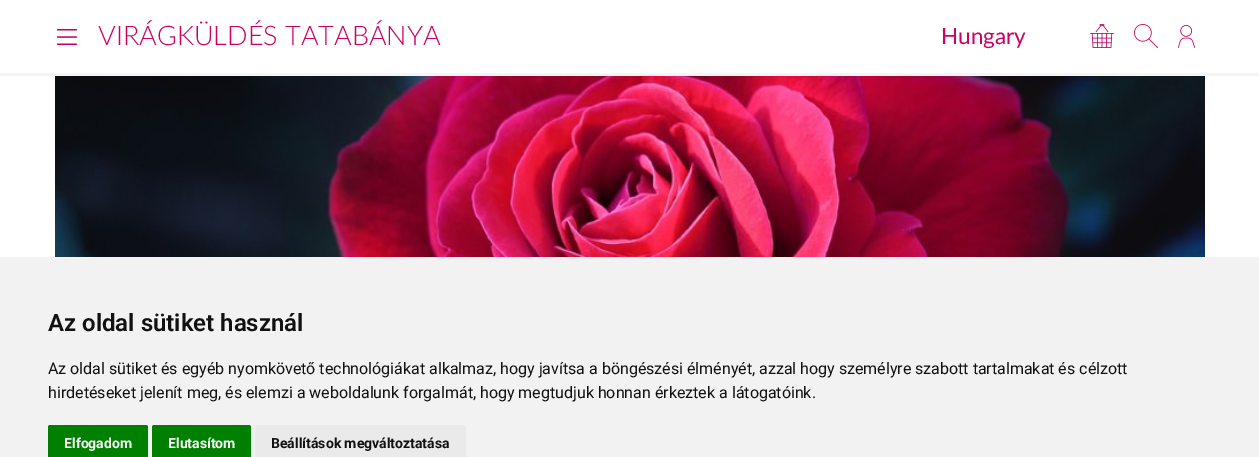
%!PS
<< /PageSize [1259 457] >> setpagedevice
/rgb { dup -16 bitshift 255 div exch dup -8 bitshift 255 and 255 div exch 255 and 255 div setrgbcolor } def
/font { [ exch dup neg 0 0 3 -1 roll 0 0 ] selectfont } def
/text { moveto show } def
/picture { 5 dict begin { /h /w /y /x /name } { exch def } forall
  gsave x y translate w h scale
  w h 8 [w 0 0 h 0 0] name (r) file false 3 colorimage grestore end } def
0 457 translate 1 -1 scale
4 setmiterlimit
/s1 { /Lato-Light 27 font 16#CA0264 rgb } def
/s2 { /Lato-Regular 22.5 font 16#CA0264 rgb } def
/s3 { /Roboto-SemiBold 24 font 16#111111 rgb } def
/s4 { /Roboto-Regular 16 font 16#111111 rgb } def
/s5 { /Roboto-Bold 14 font 16#FFFFFF rgb } def
/s6 { /Roboto-Bold 14 font 16#111111 rgb } def
16#FFFFFF rgb
0 0 1259 457 rectfill
16#F5F5F5 rgb
0 73 1259 3 rectfill
(pic1.raw) 57 29 20 16 picture
s1
(VIRÁGKÜLDÉS TATABÁNYA) 98 45 text
s2
(Hungary) 941 44 text
(pic2.raw) 1090 24 24 24 picture
(pic3.raw) 1134 24 24 24 picture
(pic4.raw) 1178 25 17 23 picture
(pic5.raw) 55 76 1150 181 picture
16#F2F2F2 rgb
0 257 1259 200 rectfill
s3
(Az oldal sütiket használ) 48 331 text
s4
(Az oldal sütiket és egyéb nyomkövető technológiákat alkalmaz, hogy javítsa a böngészési élményét, azzal hogy személyre szabott tartalmakat és célzott) 48 374 text
(hirdetéseket jelenít meg, és elemzi a weboldalunk forgalmát, hogy megtudjuk honnan érkeztek a látogatóink.) 48 398 text
16#008000 rgb
50 425 moveto 146 425 lineto 147 425 148 426 148 427 curveto 148 457 lineto 48 457 lineto 48 427 lineto 48 426 49 425 50 425 curveto closepath fill
s5
(Elfogadom) 64 448 text
16#008000 rgb
154 425 moveto 249 425 lineto 250 425 251 426 251 427 curveto 251 457 lineto 152 457 lineto 152 427 lineto 152 426 153 425 154 425 curveto closepath fill
s5
(Elutasítom) 168 448 text
16#EAEAEA rgb
257 425 moveto 464 425 lineto 465 425 466 426 466 427 curveto 466 457 lineto 255 457 lineto 255 427 lineto 255 426 256 425 257 425 curveto closepath fill
s6
(Beállítások megváltoztatása) 271 448 text
showpage
